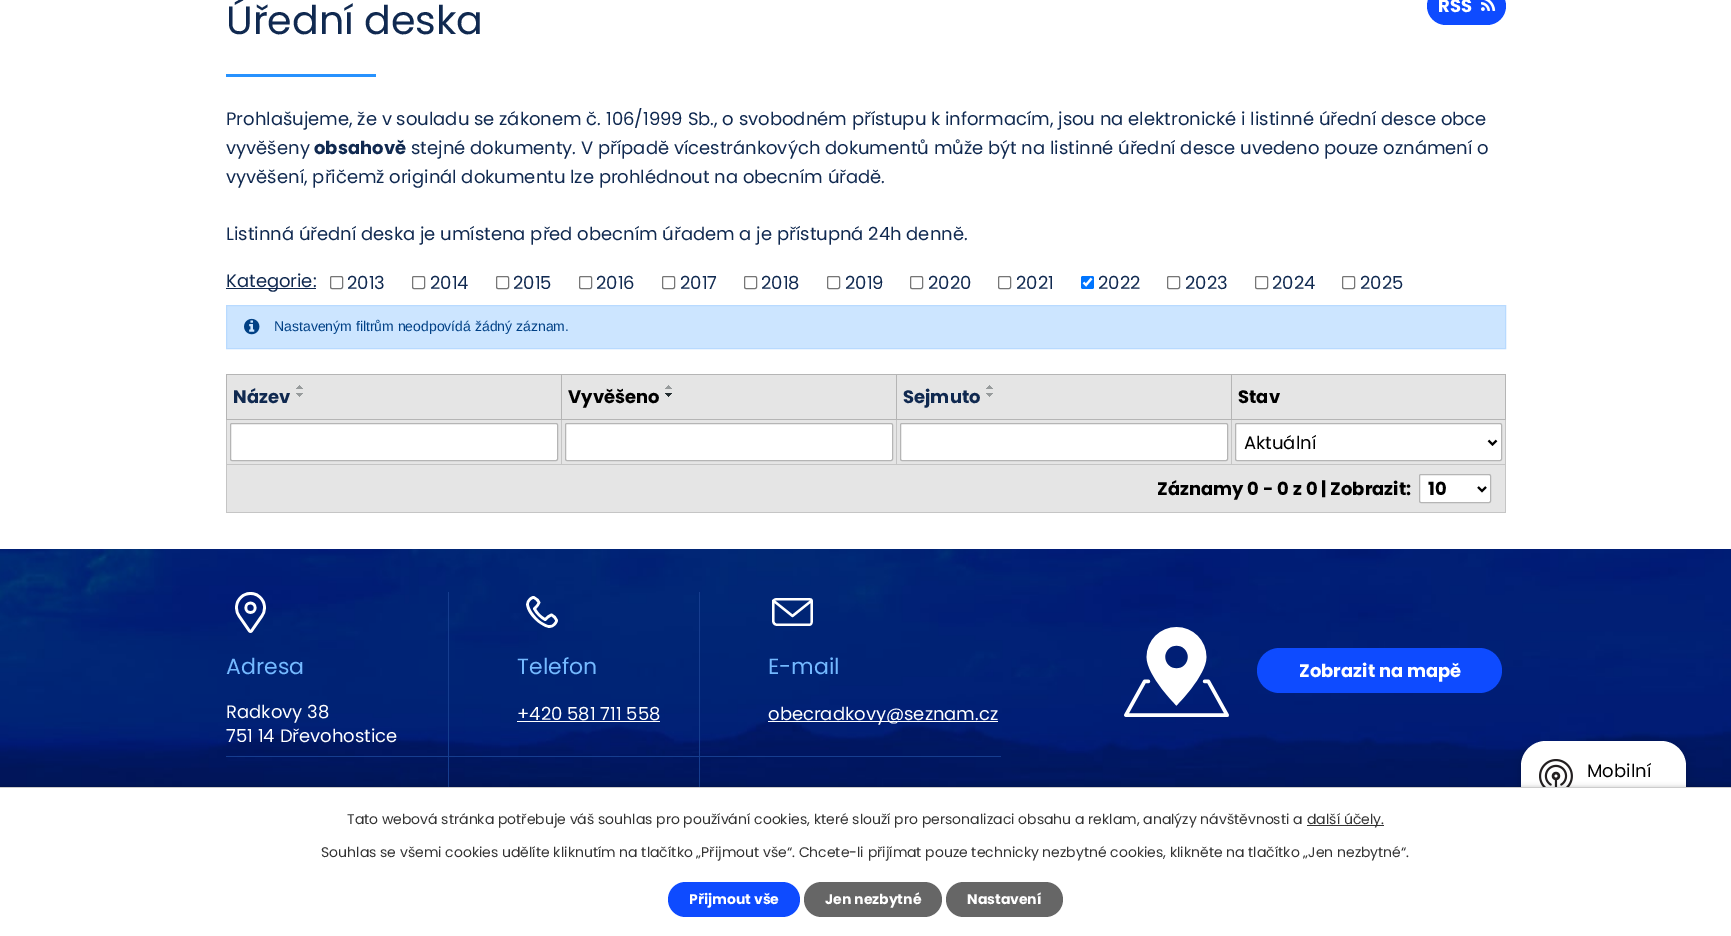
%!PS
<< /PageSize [1731 936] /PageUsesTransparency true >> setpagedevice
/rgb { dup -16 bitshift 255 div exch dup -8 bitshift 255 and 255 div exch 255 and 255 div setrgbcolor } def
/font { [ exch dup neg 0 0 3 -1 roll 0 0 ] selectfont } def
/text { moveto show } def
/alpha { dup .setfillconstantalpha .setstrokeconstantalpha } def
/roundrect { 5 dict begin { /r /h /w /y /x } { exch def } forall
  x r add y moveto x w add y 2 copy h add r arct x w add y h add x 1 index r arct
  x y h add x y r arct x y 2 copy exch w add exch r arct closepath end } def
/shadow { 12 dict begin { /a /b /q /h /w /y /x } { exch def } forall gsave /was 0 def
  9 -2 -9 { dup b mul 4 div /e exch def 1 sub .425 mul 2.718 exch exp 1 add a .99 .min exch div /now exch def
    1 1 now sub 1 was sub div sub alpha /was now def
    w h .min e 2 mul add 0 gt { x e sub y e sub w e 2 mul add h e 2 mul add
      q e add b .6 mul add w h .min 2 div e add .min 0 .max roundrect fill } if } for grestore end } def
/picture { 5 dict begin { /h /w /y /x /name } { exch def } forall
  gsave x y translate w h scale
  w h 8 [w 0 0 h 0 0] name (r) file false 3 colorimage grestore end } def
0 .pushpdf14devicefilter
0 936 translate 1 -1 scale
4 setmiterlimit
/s1 { /Poppins-Regular 39.5 font 16#102950 rgb } def
/s2 { /Poppins-Bold 18 font 16#FFFFFF rgb } def
/s3 { /Poppins-Regular 18 font 16#102950 rgb } def
/s4 { /Poppins-Bold 18 font 16#102950 rgb } def
/s5 { /LiberationSans-Regular 14 font 16#004085 rgb } def
/s6 { /Poppins-Bold 18 font 16#000000 rgb } def
/s7 { /Poppins-Regular 18 font 16#000000 rgb } def
/s8 { /Poppins-Regular 22 font 16#74B9FF rgb } def
/s9 { /Poppins-Regular 18 font 16#FFFFFF rgb } def
/s10 { /Poppins-Regular 14 font 16#333333 rgb } def
/s11 { /Poppins-Bold 14 font 16#FFFFFF rgb } def
16#FFFFFF rgb
0 0 1731 936 rectfill
s1
(Úřední deska) 226 34 text
16#2792FE rgb
226 74 150 3 rectfill
16#0E4BFF rgb
1427 -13 79 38 19 roundrect fill
s2
(RSS) 1438 12 text
(pic1.raw) 1481 0 15 11 picture
s3
(Prohlašujeme, že v souladu se zákonem č. 106/1999 Sb., o svobodném přístupu k informacím, jsou na elektronické i listinné úřední desce obce) 226 125 text
(vyvěšeny) 226 154 text
s4
(obsahově) 314 154 text
s3
(stejné dokumenty. V případě vícestránkových dokumentů může být na listinné úřední desce uvedeno pouze oznámení o) 411 154 text
(vyvěšení, přičemž originál dokumentu lze prohlédnout na obecním úřadě.) 226 183 text
(Listinná úřední deska je umístena před obecním úřadem a je přístupná 24h denně.) 226 240 text
226 288 90 1 rectfill
(Kategorie:) 226 287 text
16#767676 rgb
330.5 276.5 12 12 1.5 roundrect stroke
s3
(2013) 347 289 text
16#767676 rgb
412.5 276.5 12 12 1.5 roundrect stroke
s3
(2014) 430 289 text
16#767676 rgb
496.5 276.5 12 12 1.5 roundrect stroke
s3
(2015) 513 289 text
16#767676 rgb
579.5 276.5 12 12 1.5 roundrect stroke
s3
(2016) 596 289 text
16#767676 rgb
662.5 276.5 12 12 1.5 roundrect stroke
s3
(2017) 680 289 text
16#767676 rgb
744.5 276.5 12 12 1.5 roundrect stroke
s3
(2018) 761 289 text
16#767676 rgb
827.5 276.5 12 12 1.5 roundrect stroke
s3
(2019) 845 289 text
16#767676 rgb
910.5 276.5 12 12 1.5 roundrect stroke
s3
(2020) 928 289 text
16#767676 rgb
998.5 276.5 12 12 1.5 roundrect stroke
s3
(2021) 1016 289 text
16#0075FF rgb
1081 276 13 13 2 roundrect fill
16#FFFFFF rgb
2.1 setlinewidth
1083.5 282.5 moveto 1086 285 lineto 1091.5 278.5 lineto stroke
s3
(2022) 1098 289 text
16#767676 rgb
1 setlinewidth
1167.5 276.5 12 12 1.5 roundrect stroke
s3
(2023) 1185 289 text
16#767676 rgb
1255.5 276.5 12 12 1.5 roundrect stroke
s3
(2024) 1272 289 text
16#767676 rgb
1342.5 276.5 12 12 1.5 roundrect stroke
s3
(2025) 1360 289 text
16#CCE5FF rgb
226.5 305.5 moveto 1505.5 305.5 lineto 1505.5 348.5 lineto 226.5 348.5 lineto closepath gsave fill grestore
16#B8DAFF rgb
stroke
(pic2.raw) 244 318 16 17 picture
s5
(Nastaveným filtrům neodpovídá žádný záznam.) 274 331 text
16#E5E5E5 rgb
227 375 334 44 rectfill
16#B5B5B5 rgb
1231 374 275 1 rectfill
16#C5C5C5 rgb
226 464 1280 1 rectfill
1505 419 1 94 rectfill
16#B5B5B5 rgb
1505 374 1 46 rectfill
16#E5E5E5 rgb
227 420 1278 44 rectfill
16#C5C5C5 rgb
1231 419 1 46 rectfill
16#B5B5B5 rgb
1231 419 275 1 rectfill
1231 374 1 46 rectfill
896 374 336 1 rectfill
16#C5C5C5 rgb
896 419 1 46 rectfill
16#B5B5B5 rgb
896 419 336 1 rectfill
896 374 1 46 rectfill
561 374 336 1 rectfill
16#C5C5C5 rgb
561 419 1 46 rectfill
16#B5B5B5 rgb
561 419 336 1 rectfill
561 374 1 46 rectfill
226 374 336 1 rectfill
16#C5C5C5 rgb
226 512 1280 1 rectfill
226 419 1 94 rectfill
16#B5B5B5 rgb
226 419 336 1 rectfill
226 374 1 46 rectfill
s4
(Název) 233 403 text
(pic3.raw) 296 385 7 4 picture
(pic4.raw) 296 393 7 4 picture
16#E5E5E5 rgb
562 375 334 44 rectfill
s6
(Vyvěšeno) 568 403 text
(pic3.raw) 665 385 7 4 picture
(pic5.raw) 665 393 7 4 picture
16#E5E5E5 rgb
897 375 334 44 rectfill
s4
(Sejmuto) 903 403 text
(pic3.raw) 986 385 7 4 picture
(pic4.raw) 986 393 7 4 picture
16#E5E5E5 rgb
1232 375 273 44 rectfill
s6
(Stav) 1238 403 text
16#FFFFFF rgb
230.5 423.5 327 37 1.5 roundrect gsave fill grestore
16#B5B5B5 rgb
stroke
16#FFFFFF rgb
565.5 423.5 327 37 1.5 roundrect gsave fill grestore
16#B5B5B5 rgb
stroke
16#FFFFFF rgb
900.5 423.5 327 37 1.5 roundrect gsave fill grestore
16#B5B5B5 rgb
stroke
16#FFFFFF rgb
1235.5 423.5 266 37 1.5 roundrect gsave fill grestore
16#B5B5B5 rgb
stroke
16#000000 rgb
2 setlinewidth
1488.5 440.5 moveto 1492.5 444.5 lineto 1496.5 440.5 lineto stroke
s7
(Aktuální) 1244 449 text
16#E5E5E5 rgb
227 465 1278 47 rectfill
s6
(Záznamy 0 - 0 z 0 | Zobrazit:) 1157 495 text
16#FFFFFF rgb
1419.5 474.5 71 28 1.5 roundrect gsave fill grestore
16#B5B5B5 rgb
1 setlinewidth
stroke
16#000000 rgb
2 setlinewidth
1478 487 moveto 1482 491 lineto 1486 487 lineto stroke
(10) 1428 495 text
(pic7.raw) 0 549 1731 238 picture
1521 744 165 150 25 5 0.2 shadow
16#FFFFFF rgb
1521 741 165 150 25 roundrect fill
(pic6.raw) 1539 759 34 28 picture
s7
(Mobilní) 1587 777 text
16#163D8F rgb
226 756 775 1 rectfill
(pic8.raw) 235 592 31 41 picture
s8
(Adresa) 226 674 text
16#163D8F rgb
448 592 1 195 rectfill
s9
(Radkovy 38) 226 718 text
(751 14 Dřevohostice) 226 742 text
(pic9.raw) 526 596 32 32 picture
s8
(Telefon) 517 674 text
16#163D8F rgb
699 592 1 195 rectfill
s9
(+420 581 711 558) 517 720 text
517 721 143 1 rectfill
(pic10.raw) 772 598 41 28 picture
s8
(E-mail) 768 674 text
16#FFFFFF rgb
768 721 230 1 rectfill
s9
(obecradkovy@seznam.cz) 768 720 text
(pic11.raw) 1124 627 105 90 picture
16#0E4BFF rgb
1257 648 245 45 22.5 roundrect fill
s2
(Zobrazit na mapě) 1299 677 text
16#000000 rgb
0 787 1731 149 0 2.5 0.2 shadow
16#FFFFFF rgb
0 788 1731 148 rectfill
16#CCCCCC rgb
0 787 1731 1 rectfill
s10
(Tato webová stránka potřebuje váš souhlas pro používání cookies, které slouží pro personalizaci obsahu a reklam, analýzy návštěvnosti a) 347 824 text
1307 825 77 1 rectfill
(další účely.) 1307 824 text
(Souhlas se všemi cookies udělíte kliknutím na tlačítko „Přijmout vše“. Chcete-li přijímat pouze technicky nezbytné cookies, klikněte na tlačítko „Jen nezbytné“.) 321 857 text
16#0E4BFF rgb
668 882 132 35 17.5 roundrect fill
s11
(Přijmout vše) 689 904 text
16#666666 rgb
804 882 138 35 17.5 roundrect fill
s11
(Jen nezbytné) 825 904 text
16#666666 rgb
946 882 117 35 17.5 roundrect fill
s11
(Nastavení) 967 904 text
.poppdf14devicefilter showpage
